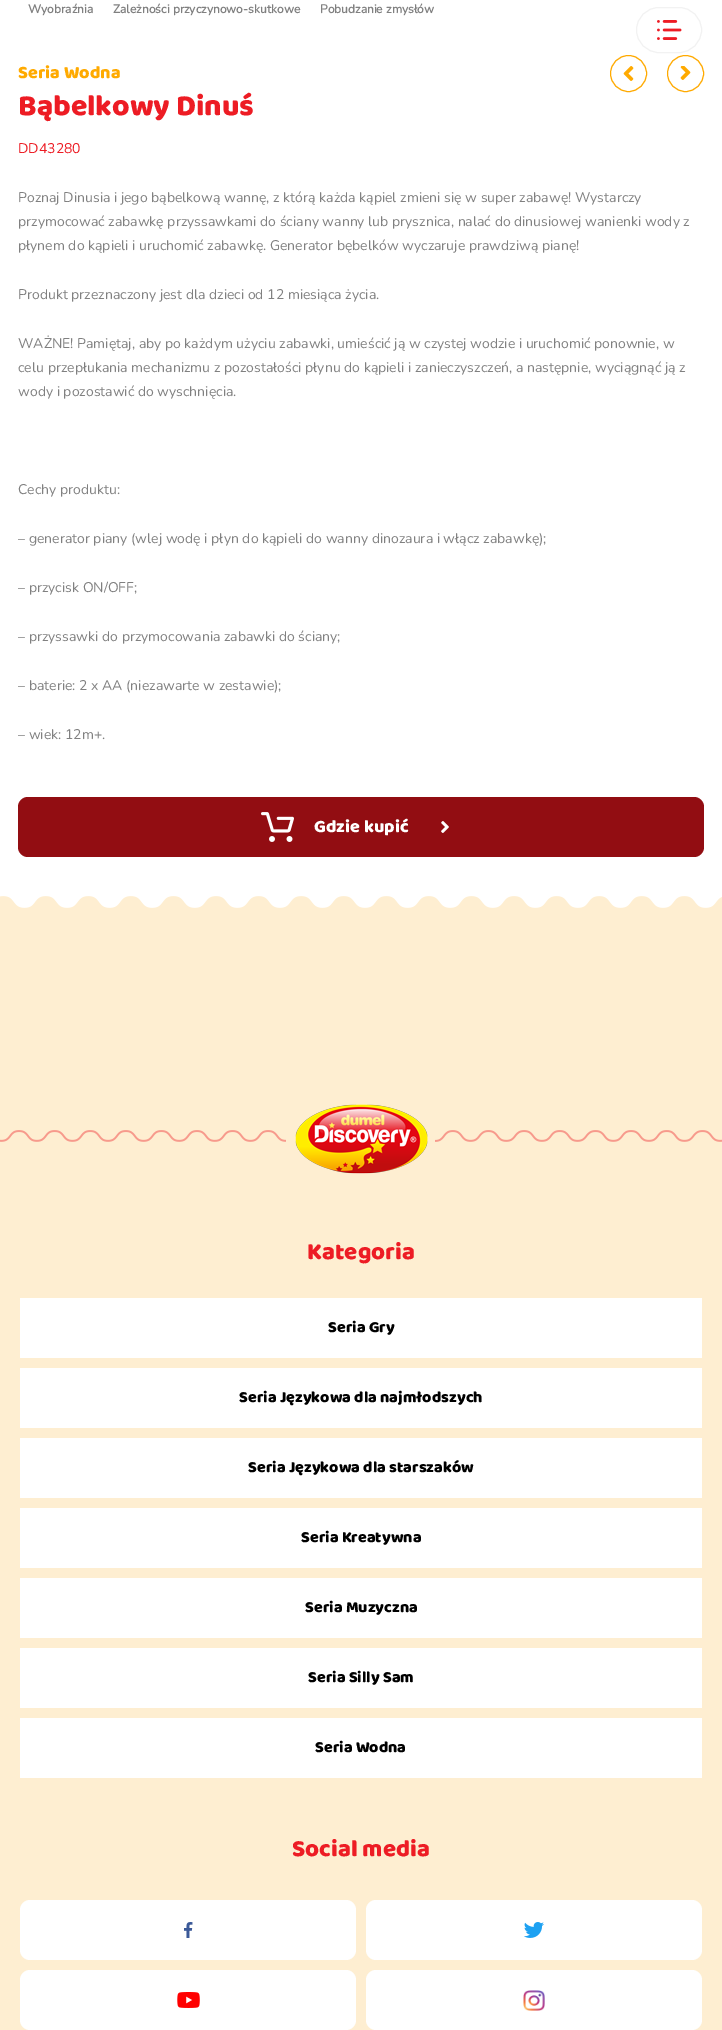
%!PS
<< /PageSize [722 2030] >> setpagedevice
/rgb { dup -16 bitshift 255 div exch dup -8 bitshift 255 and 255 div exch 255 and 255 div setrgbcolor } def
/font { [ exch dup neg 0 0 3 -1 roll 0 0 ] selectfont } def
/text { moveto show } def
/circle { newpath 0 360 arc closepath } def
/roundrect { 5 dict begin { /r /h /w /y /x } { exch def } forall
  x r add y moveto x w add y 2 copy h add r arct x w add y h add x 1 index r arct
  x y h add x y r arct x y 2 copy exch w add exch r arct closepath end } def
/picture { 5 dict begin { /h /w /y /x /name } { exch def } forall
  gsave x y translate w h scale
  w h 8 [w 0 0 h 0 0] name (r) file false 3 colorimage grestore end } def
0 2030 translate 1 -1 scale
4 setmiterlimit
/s1 { /Nunito-Bold 12 font 16#808080 rgb } def
/s2 { /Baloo-Regular 18 font 16#FFAA00 rgb } def
/s3 { /Baloo-Regular 30 font 16#ED1C24 rgb } def
/s4 { /Nunito-ExtraLight 14 font 16#ED1C24 rgb } def
/s5 { /Nunito-ExtraLight 14 font 16#808080 rgb } def
/s6 { /Baloo-Regular 18 font 16#FFFFFF rgb } def
/s7 { /Baloo-Regular 24 font 16#ED1C24 rgb } def
/s8 { /Baloo-Regular 16 font 16#000000 rgb } def
16#FFFFFF rgb
0 0 722 2030 rectfill
s1
(Wyobraźnia) 28 13 text
(Zależności przyczynowo-skutkowe) 113 13 text
(Pobudzanie zmysłów) 320 13 text
s2
(Seria Wodna) 18 78 text
628.5 73.5 18 circle stroke
(pic1.raw) 623 66 11 15 picture
685.5 73.5 18 circle stroke
(pic2.raw) 680 66 11 14 picture
s3
(Bąbelkowy Dinuś) 18 115 text
s4
(DD43280) 18 153 text
s5
(Poznaj Dinusia i jego bąbelkową wannę, z którą każda kąpiel zmieni się w super zabawę! Wystarczy) 18 202 text
(przymocować zabawkę przyssawkami do ściany wanny lub prysznica, nalać do dinusiowej wanienki wody z) 18 226 text
(płynem do kąpieli i uruchomić zabawkę. Generator bębelków wyczaruje prawdziwą pianę!) 18 250 text
(Produkt przeznaczony jest dla dzieci od 12 miesiąca życia.) 18 299 text
(WAŻNE! Pamiętaj, aby po każdym użyciu zabawki, umieścić ją w czystej wodzie i uruchomić ponownie, w) 18 348 text
(celu przepłukania mechanizmu z pozostałości płynu do kąpieli i zanieczyszczeń, a następnie, wyciągnąć ją z) 18 372 text
(wody i pozostawić do wyschnięcia.) 18 396 text
(Cechy produktu:) 18 494 text
(– generator piany \(wlej wodę i płyn do kąpieli do wanny dinozaura i włącz zabawkę\);) 18 543 text
(– przycisk ON/OFF;) 18 592 text
(– przyssawki do przymocowania zabawki do ściany;) 18 641 text
(– baterie: 2 x AA \(niezawarte w zestawie\);) 18 690 text
(– wiek: 12m+.) 18 739 text
16#920D12 rgb
18 797 686 60 10 roundrect fill
(pic3.raw) 261 812 33 30 picture
s6
(Gdzie kupić) 314 832 text
(pic4.raw) 441 821 8 12 picture
16#F2F2F2 rgb
636.5 7.5 65 45 22.5 roundrect stroke
(pic5.raw) 657 20 25 20 picture
16#FEEED1 rgb
0 927 722 1103 rectfill
(pic6.raw) 0 896 722 31 picture
(pic7.raw) 0 1130 286 12 picture
(pic8.raw) 295 1104 133 70 picture
(pic9.raw) 435 1130 287 12 picture
s7
(Kategoria) 307 1259 text
16#FFFFFF rgb
20 1298 682 60 rectfill
s8
(Seria Gry) 328 1332 text
16#FFFFFF rgb
20 1368 682 60 rectfill
s8
(Seria Językowa dla najmłodszych) 239 1402 text
16#FFFFFF rgb
20 1438 682 60 rectfill
s8
(Seria Językowa dla starszaków) 248 1472 text
16#FFFFFF rgb
20 1508 682 60 rectfill
s8
(Seria Kreatywna) 301 1542 text
16#FFFFFF rgb
20 1578 682 60 rectfill
s8
(Seria Muzyczna) 305 1612 text
16#FFFFFF rgb
20 1648 682 60 rectfill
s8
(Seria Silly Sam) 308 1682 text
16#FFFFFF rgb
20 1718 682 60 rectfill
s8
(Seria Wodna) 315 1752 text
s7
(Social media) 292 1856 text
16#FFFFFF rgb
20 1900 336 60 10 roundrect fill
(pic10.raw) 184 1922 9 16 picture
366 1900 336 60 10 roundrect fill
(pic11.raw) 524 1922 20 16 picture
20 1970 336 60 10 roundrect fill
(pic12.raw) 177 1992 23 16 picture
366 1970 336 60 10 roundrect fill
(pic13.raw) 523 1990 22 21 picture
showpage
